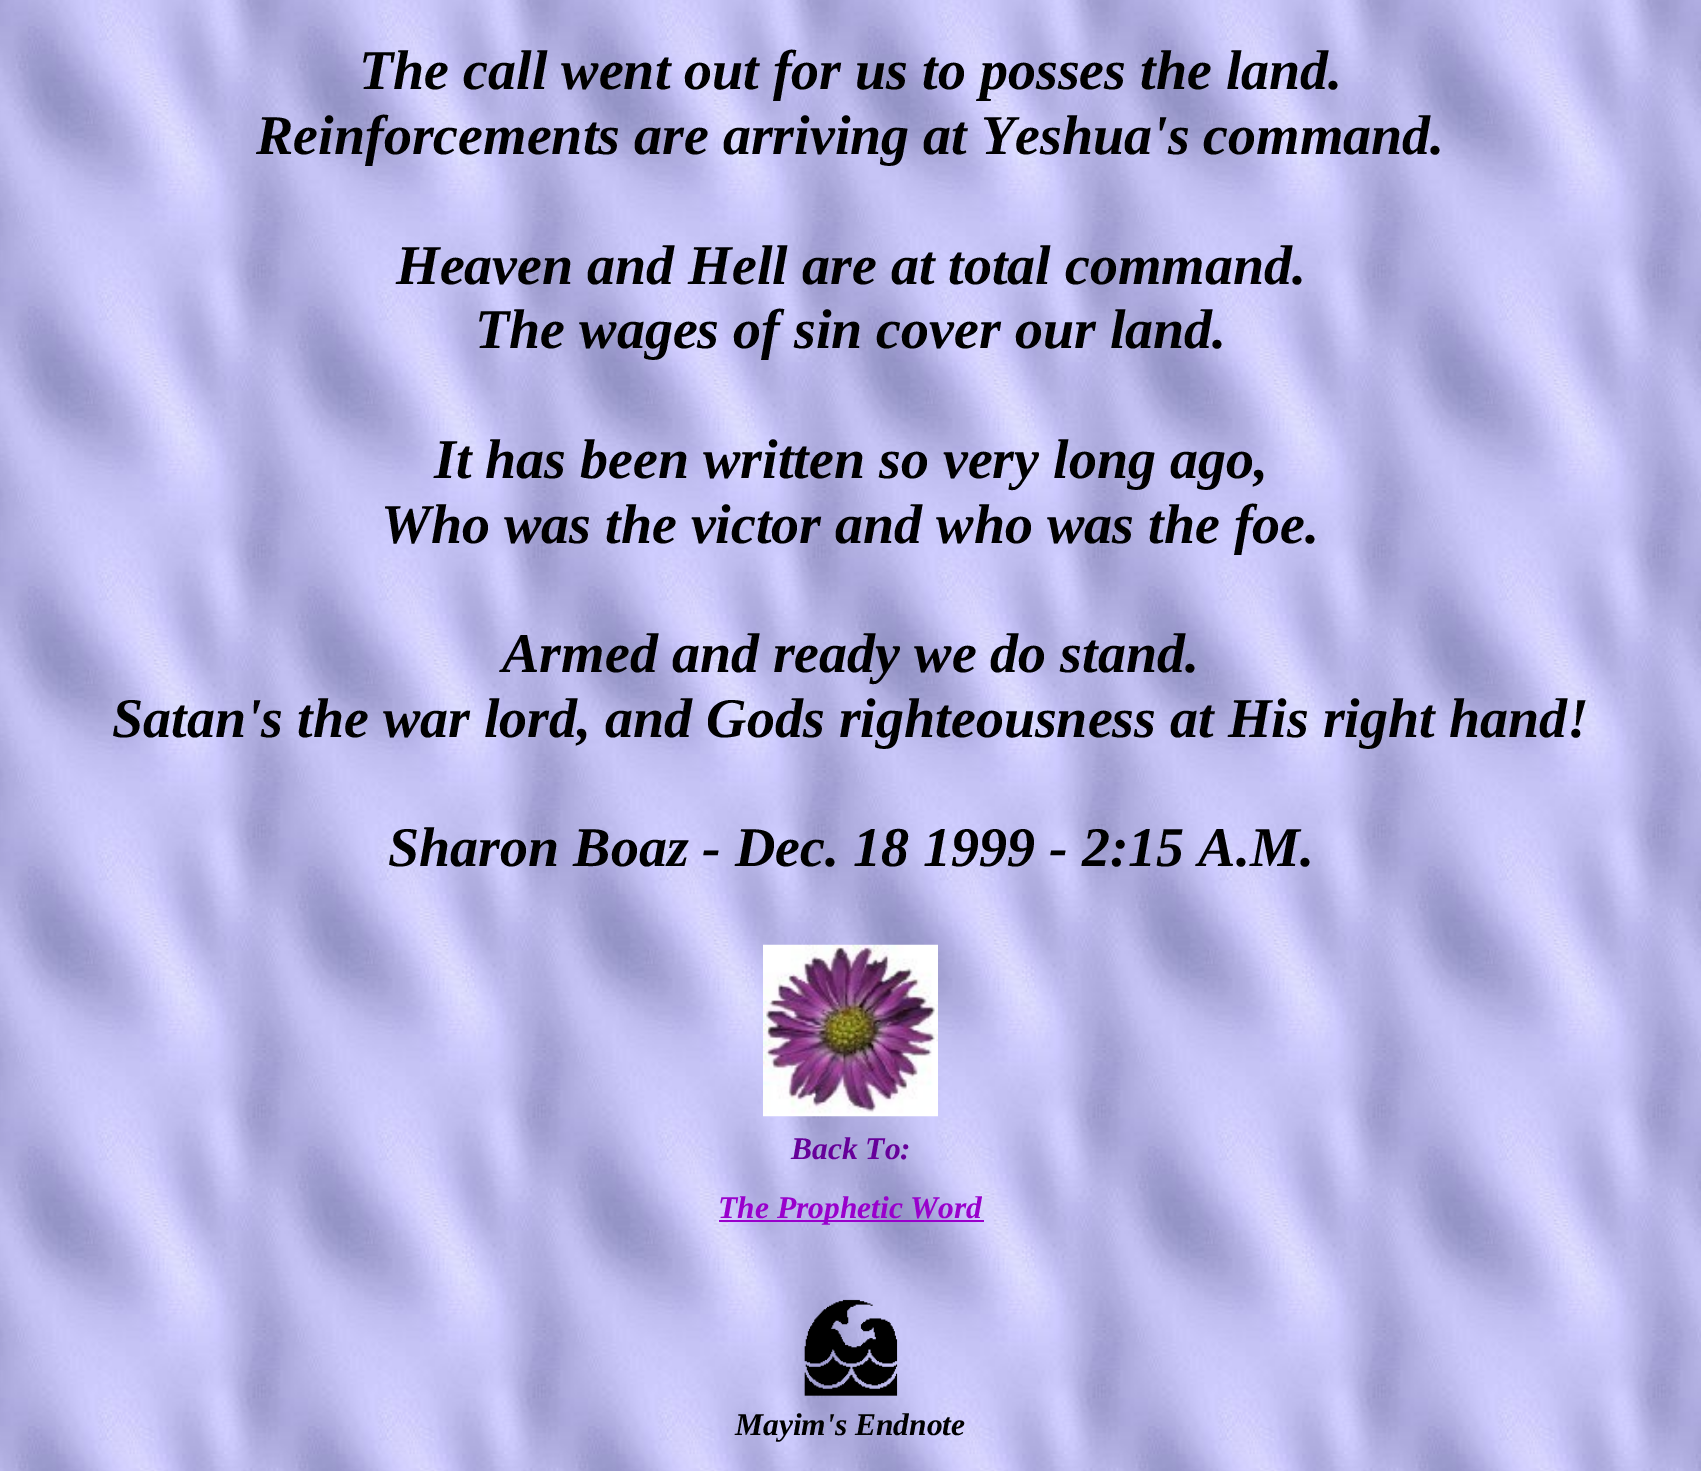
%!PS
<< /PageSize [1701 1471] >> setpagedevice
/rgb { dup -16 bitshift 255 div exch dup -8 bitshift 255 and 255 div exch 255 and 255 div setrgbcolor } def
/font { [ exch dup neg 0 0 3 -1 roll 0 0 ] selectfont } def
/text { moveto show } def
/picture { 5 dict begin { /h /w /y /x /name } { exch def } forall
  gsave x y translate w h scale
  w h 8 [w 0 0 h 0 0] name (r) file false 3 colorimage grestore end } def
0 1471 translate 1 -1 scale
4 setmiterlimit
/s1 { /LiberationSerif-BoldItalic 56 font 16#000000 rgb } def
/s2 { /LiberationSerif-BoldItalic 31.5 font 16#660099 rgb } def
/s3 { /LiberationSerif-BoldItalic 31.5 font 16#9900CC rgb } def
/s4 { /LiberationSerif-BoldItalic 31.5 font 16#000000 rgb } def
16#FFFFFF rgb
0 0 1701 1471 rectfill
(pic1.raw) 0 0 1701 1471 picture
s1
(The call went out for us to posses the land.) 359 89 text
(Reinforcements are arriving at Yeshua's command.) 256 154 text
(Heaven and Hell are at total command.) 396 284 text
(The wages of sin cover our land.) 475 348 text
(It has been written so very long ago,) 434 478 text
(Who was the victor and who was the foe.) 381 543 text
(Armed and ready we do stand.) 502 672 text
(Satan's the war lord, and Gods righteousness at His right hand!) 112 737 text
(Sharon Boaz - Dec. 18 1999 - 2:15 A.M.) 388 866 text
(pic2.raw) 763 944 175 173 picture
s2
(Back To:) 791 1159 text
16#9900CC rgb
719 1220 265 2 rectfill
(The Prophetic Word) 718 1218 text
(pic3.raw) 804 1299 94 97 picture
s4
(Mayim's Endnote) 735 1435 text
showpage
